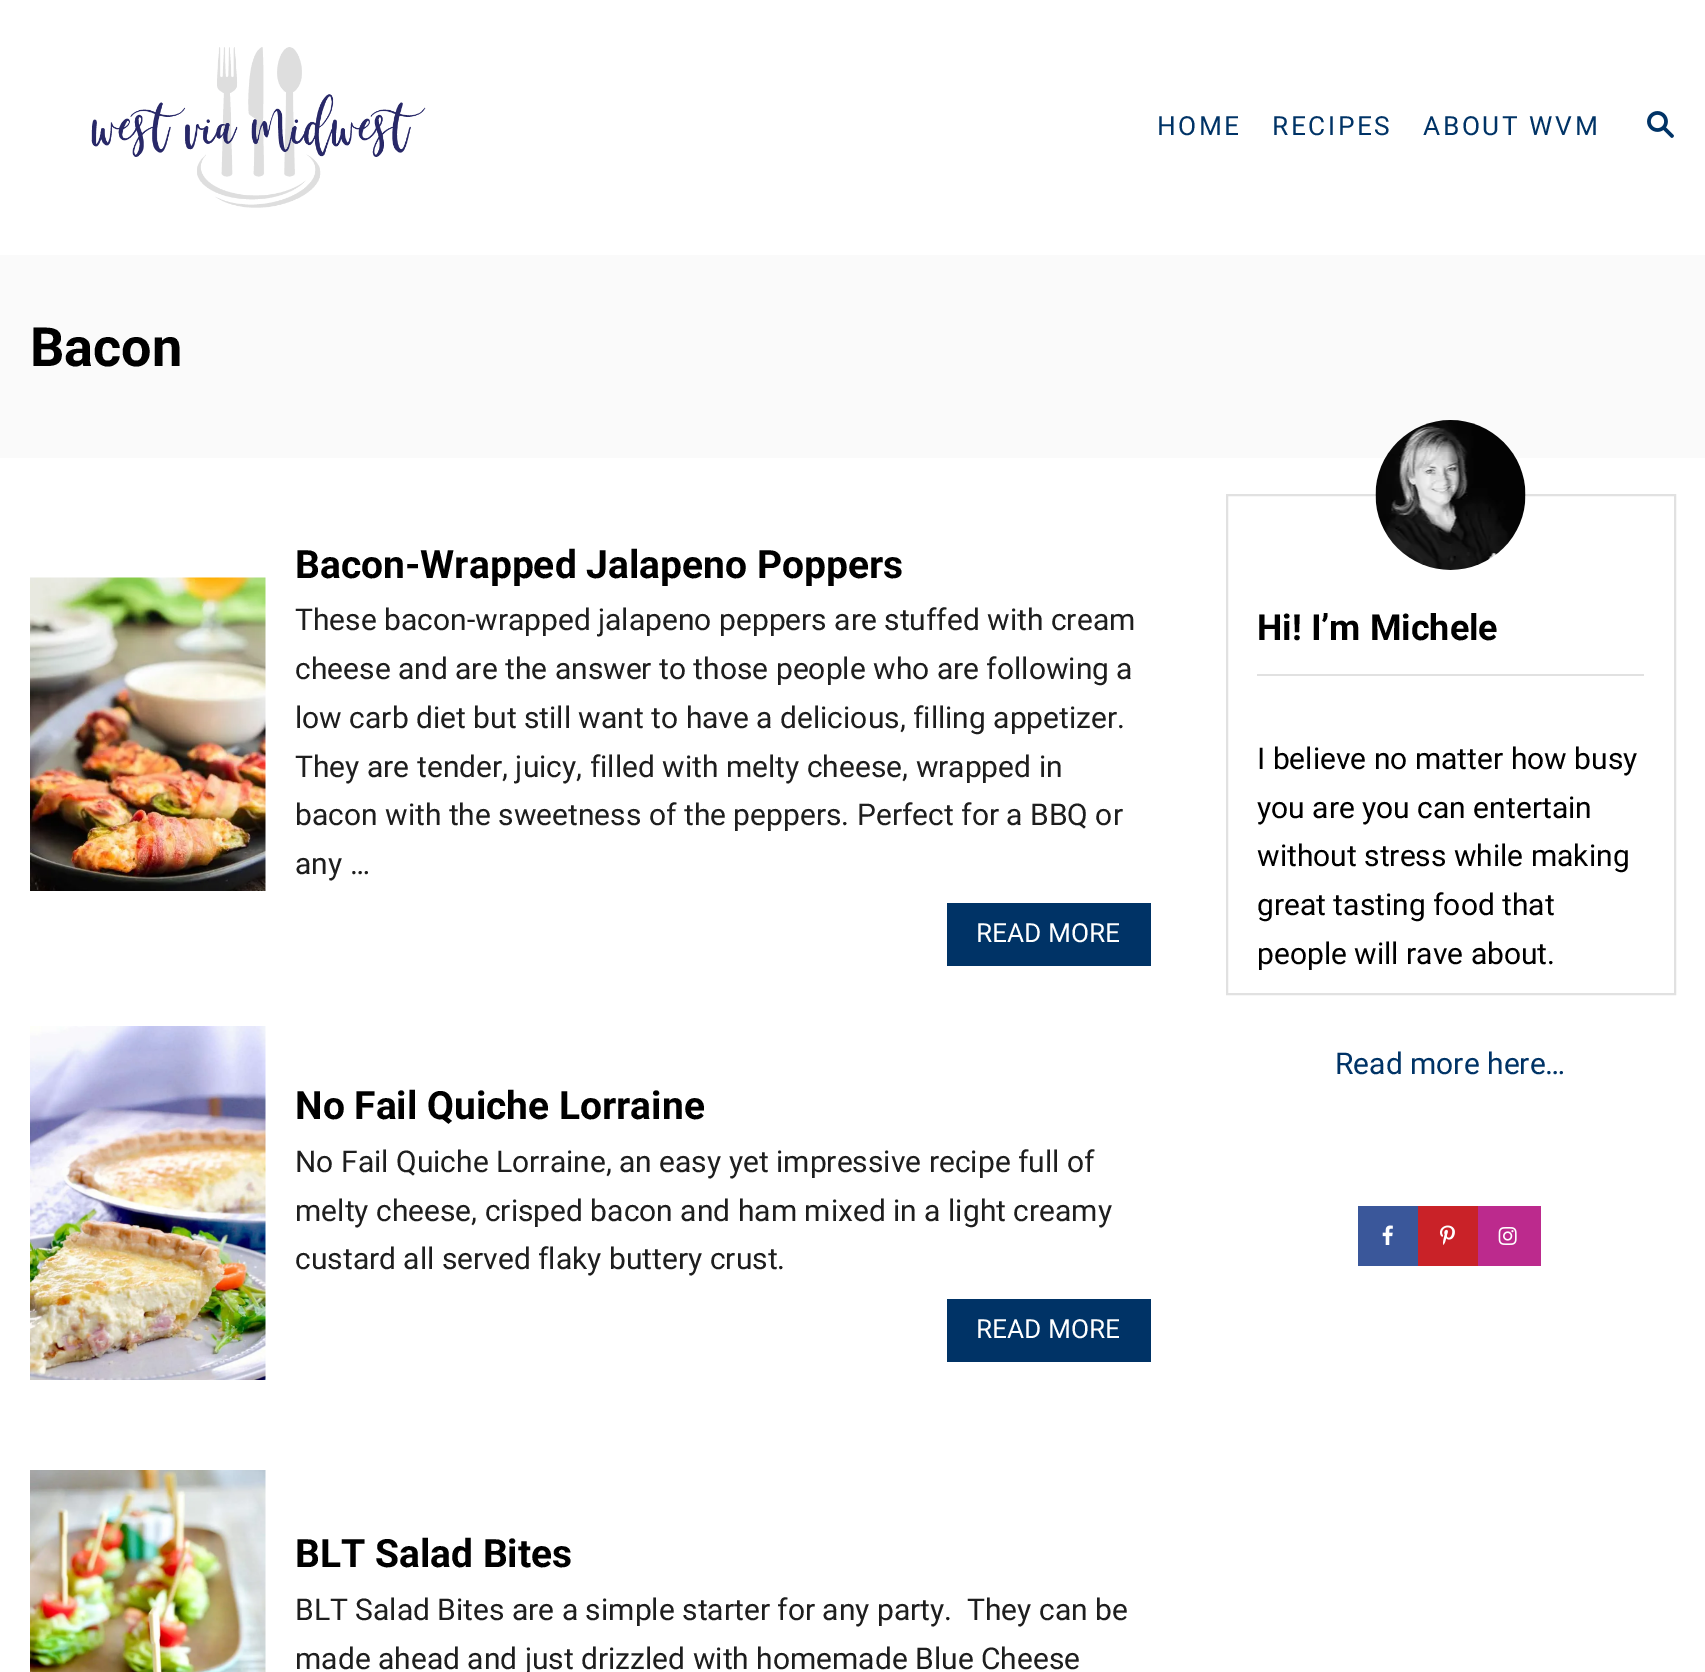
%!PS
<< /PageSize [1705 1672] >> setpagedevice
/rgb { dup -16 bitshift 255 div exch dup -8 bitshift 255 and 255 div exch 255 and 255 div setrgbcolor } def
/font { [ exch dup neg 0 0 3 -1 roll 0 0 ] selectfont } def
/text { moveto show } def
/picture { 5 dict begin { /h /w /y /x /name } { exch def } forall
  gsave x y translate w h scale
  w h 8 [w 0 0 h 0 0] name (r) file false 3 colorimage grestore end } def
0 1672 translate 1 -1 scale
4 setmiterlimit
/s1 { /Roboto-Bold 54 font 16#000000 rgb } def
/s2 { /Roboto-Bold 39 font 16#000000 rgb } def
/s3 { /Roboto-Regular 30 font 16#1E1E1E rgb } def
/s4 { /Roboto-Regular 26.25 font 16#FFFFFF rgb } def
/s5 { /Roboto-Bold 36 font 16#000000 rgb } def
/s6 { /Roboto-Regular 30 font 16#000000 rgb } def
/s7 { /Roboto-Regular 30 font 16#003366 rgb } def
16#FFFFFF rgb
0 0 1705 1672 rectfill
(pic1.raw) 91 47 335 161 picture
/Roboto-Regular 26.25 font
16#003366 rgb
1157 135 moveto 2.6 0 (HOME) ashow
1272 135 moveto 2.6 0 (RECIPES) ashow
1423 135 moveto 2.6 0 (ABOUT WVM) ashow
(pic2.raw) 1647 111 27 27 picture
16#FAFAFA rgb
30 458 moveto 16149 458 lineto 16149 255 lineto 1150 255 lineto 1150 458 lineto closepath fill
0 255 1150 203 rectfill
s1
(Bacon) 30 366 text
(pic3.raw) 30 577 236 314 picture
s2
(Bacon-Wrapped Jalapeno Poppers) 295 578 text
s3
(These bacon-wrapped jalapeno peppers are stuffed with cream) 295 630 text
(cheese and are the answer to those people who are following a) 295 679 text
(low carb diet but still want to have a delicious, filling appetizer.) 295 728 text
(They are tender, juicy, filled with melty cheese, wrapped in) 295 777 text
(bacon with the sweetness of the peppers. Perfect for a BBQ or) 295 825 text
(any …) 295 874 text
16#003366 rgb
947 903 204 63 rectfill
s4
(READ MORE) 976 942 text
(pic4.raw) 30 1026 236 354 picture
s2
(No Fail Quiche Lorraine) 295 1119 text
s3
(No Fail Quiche Lorraine, an easy yet impressive recipe full of) 295 1172 text
(melty cheese, crisped bacon and ham mixed in a light creamy) 295 1221 text
(custard all served flaky buttery crust.) 295 1269 text
16#003366 rgb
947 1299 204 63 rectfill
s4
(READ MORE) 976 1338 text
(pic5.raw) 30 1470 236 202 picture
s2
(BLT Salad Bites) 295 1567 text
s3
(BLT Salad Bites are a simple starter for any party.  They can be) 295 1620 text
(made ahead and just drizzled with homemade Blue Cheese) 295 1669 text
16#E1E1E1 rgb
2 setlinewidth
1227 495 448 499 rectstroke
(pic6.raw) 1375 420 151 150 picture
1257 674 387 2 rectfill
s5
(Hi! I’m Michele) 1257 640 text
s6
(I believe no matter how busy) 1257 769 text
(you are you can entertain) 1257 818 text
(without stress while making) 1257 866 text
(great tasting food that) 1257 915 text
(people will rave about.) 1257 964 text
s7
(Read more here…) 1335 1074 text
16#3A579A rgb
1358 1206 60 60 rectfill
(pic7.raw) 1382 1225 11 20 picture
16#C92228 rgb
1418 1206 60 60 rectfill
(pic8.raw) 1439 1225 16 20 picture
16#BC2A8D rgb
1478 1206 63 60 rectfill
(pic9.raw) 1498 1227 19 18 picture
showpage
